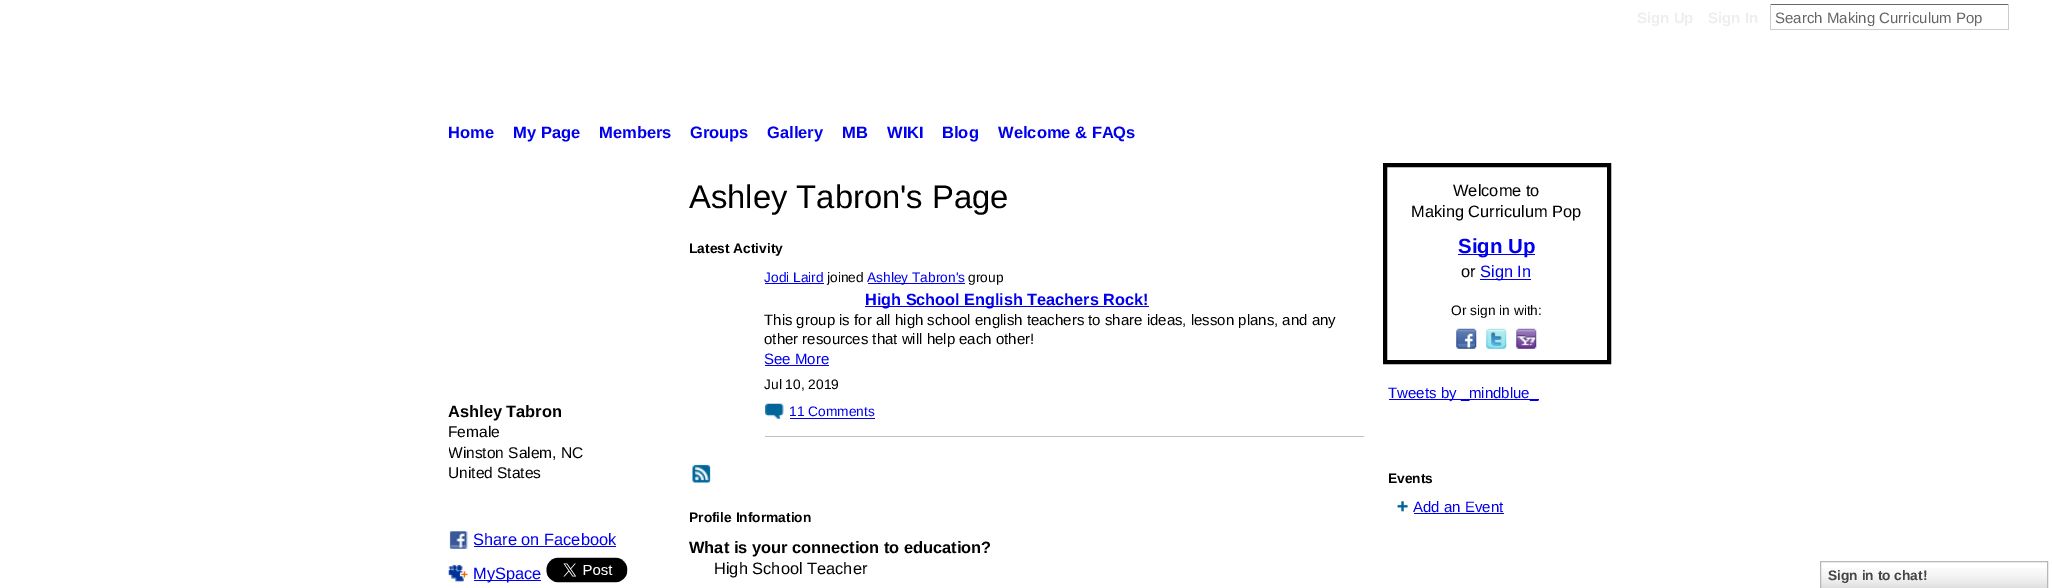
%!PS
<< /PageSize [2052 588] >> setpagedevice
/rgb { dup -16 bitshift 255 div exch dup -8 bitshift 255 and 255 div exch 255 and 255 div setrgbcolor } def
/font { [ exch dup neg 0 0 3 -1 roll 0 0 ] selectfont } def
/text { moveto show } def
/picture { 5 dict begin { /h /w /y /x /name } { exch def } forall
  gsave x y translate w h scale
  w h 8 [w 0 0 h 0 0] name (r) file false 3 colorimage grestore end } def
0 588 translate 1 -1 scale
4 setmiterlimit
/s1 { /LiberationSans-Bold 15 font 16#EEEEEE rgb } def
/s2 { /LiberationSans-Regular 15 font 16#666666 rgb } def
/s3 { /LiberationSans-Bold 16.5 font 16#0000EE rgb } def
/s4 { /LiberationSans-Bold 16.4 font 16#000000 rgb } def
/s5 { /LiberationSans-Regular 15.5 font 16#000000 rgb } def
/s6 { /LiberationSans-Regular 16.4 font 16#0000EE rgb } def
/s7 { /LiberationSans-Regular 32.75 font 16#000000 rgb } def
/s8 { /LiberationSans-Bold 13.75 font 16#000000 rgb } def
/s9 { /LiberationSans-Regular 13.75 font 16#0000EE rgb } def
/s10 { /LiberationSans-Regular 13.75 font 16#000000 rgb } def
/s11 { /LiberationSans-Bold 16.25 font 16#0000EE rgb } def
/s12 { /LiberationSans-Regular 15 font 16#000000 rgb } def
/s13 { /LiberationSans-Regular 15 font 16#0000EE rgb } def
/s14 { /LiberationSans-Regular 16.4 font 16#000000 rgb } def
/s15 { /LiberationSans-Bold 20.5 font 16#0000EE rgb } def
/s16 { /LiberationSans-Bold 13.75 font 16#454545 rgb } def
16#FFFFFF rgb
0 0 2052 588 rectfill
s1
(Sign Up) 1637 23 text
(Sign In) 1708 23 text
16#666666 rgb
1770 4 239 1 rectfill
16#CCCCCC rgb
2008 4 1 26 rectfill
1770 29 239 1 rectfill
1770 4 1 26 rectfill
gsave
1775 9 229 17 rectclip
s2
(Search Making Curriculum Pop) 1775 23 text
grestore
s3
(Home) 448 138 text
(My Page) 513 138 text
(Members) 599 138 text
(Groups) 690 138 text
(Gallery) 767 138 text
(MB) 842 138 text
(WIKI) 887 138 text
(Blog) 942 138 text
(Welcome & FAQs) 998 138 text
s4
(Ashley Tabron) 448 417 text
s5
(Female) 448 437 text
gsave
449 401 216 89 rectclip
(Winston Salem, NC) 448 458 text
grestore
(United States) 448 478 text
(pic1.raw) 449 531 19 18 picture
s6
(Share on Facebook) 473 545 text
474 546 142 1 rectfill
(pic2.raw) 448 564 20 18 picture
474 580 67 1 rectfill
(MySpace) 473 579 text
(pic3.raw) 546 557 82 26 picture
s7
(Ashley Tabron's Page) 689 208 text
s8
(Latest Activity) 689 253 text
16#C0C0C0 rgb
765 436 599 1 rectfill
s9
(Jodi Laird) 764 282 text
765 283 59 1 rectfill
s10
(joined) 827 282 text
16#0000EE rgb
868 283 97 1 rectfill
(Ashley Tabron's) 867 282 text
s10
(group) 968 282 text
16#0000EE rgb
865 306 284 1 rectfill
s11
(High School English Teachers Rock!) 865 305 text
s12
(This group is for all high school english teachers to share ideas, lesson plans, and any) 764 325 text
(other resources that will help each other!) 764 344 text
s13
(See More) 764 364 text
765 365 64 1 rectfill
s10
(Jul 10, 2019) 764 389 text
(pic4.raw) 765 403 19 16 picture
s9
(11 Comments) 789 416 text
790 418 85 1 rectfill
(pic5.raw) 692 464 19 19 picture
s8
(Profile Information) 689 522 text
s4
(What is your connection to education?) 689 553 text
s14
(High School Teacher) 714 574 text
4 setlinewidth
1385 165 224 197 rectstroke
(Welcome to) 1453 196 text
(Making Curriculum Pop) 1411 217 text
16#0000EE rgb
1458 254 77 1 rectfill
s15
(Sign Up) 1458 253 text
s14
(or) 1461 277 text
16#0000EE rgb
1480 279 51 1 rectfill
(Sign In) 1480 277 text
s10
(Or sign in with:) 1451 315 text
(pic6.raw) 1456 328 21 21 picture
(pic7.raw) 1486 328 21 21 picture
(pic8.raw) 1516 328 21 21 picture
16#0000EE rgb
1389 399 150 1 rectfill
s13
(Tweets by _mindblue_) 1388 398 text
s8
(Events) 1388 483 text
(pic9.raw) 1397 501 11 11 picture
s13
(Add an Event) 1413 512 text
1414 513 90 1 rectfill
(pic10.raw) 1821 568 226 20 picture
16#B7B7B7 rgb
1 setlinewidth
1820.5 561.5 227 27 rectstroke
s16
(Sign in to chat!) 1828 580 text
showpage
